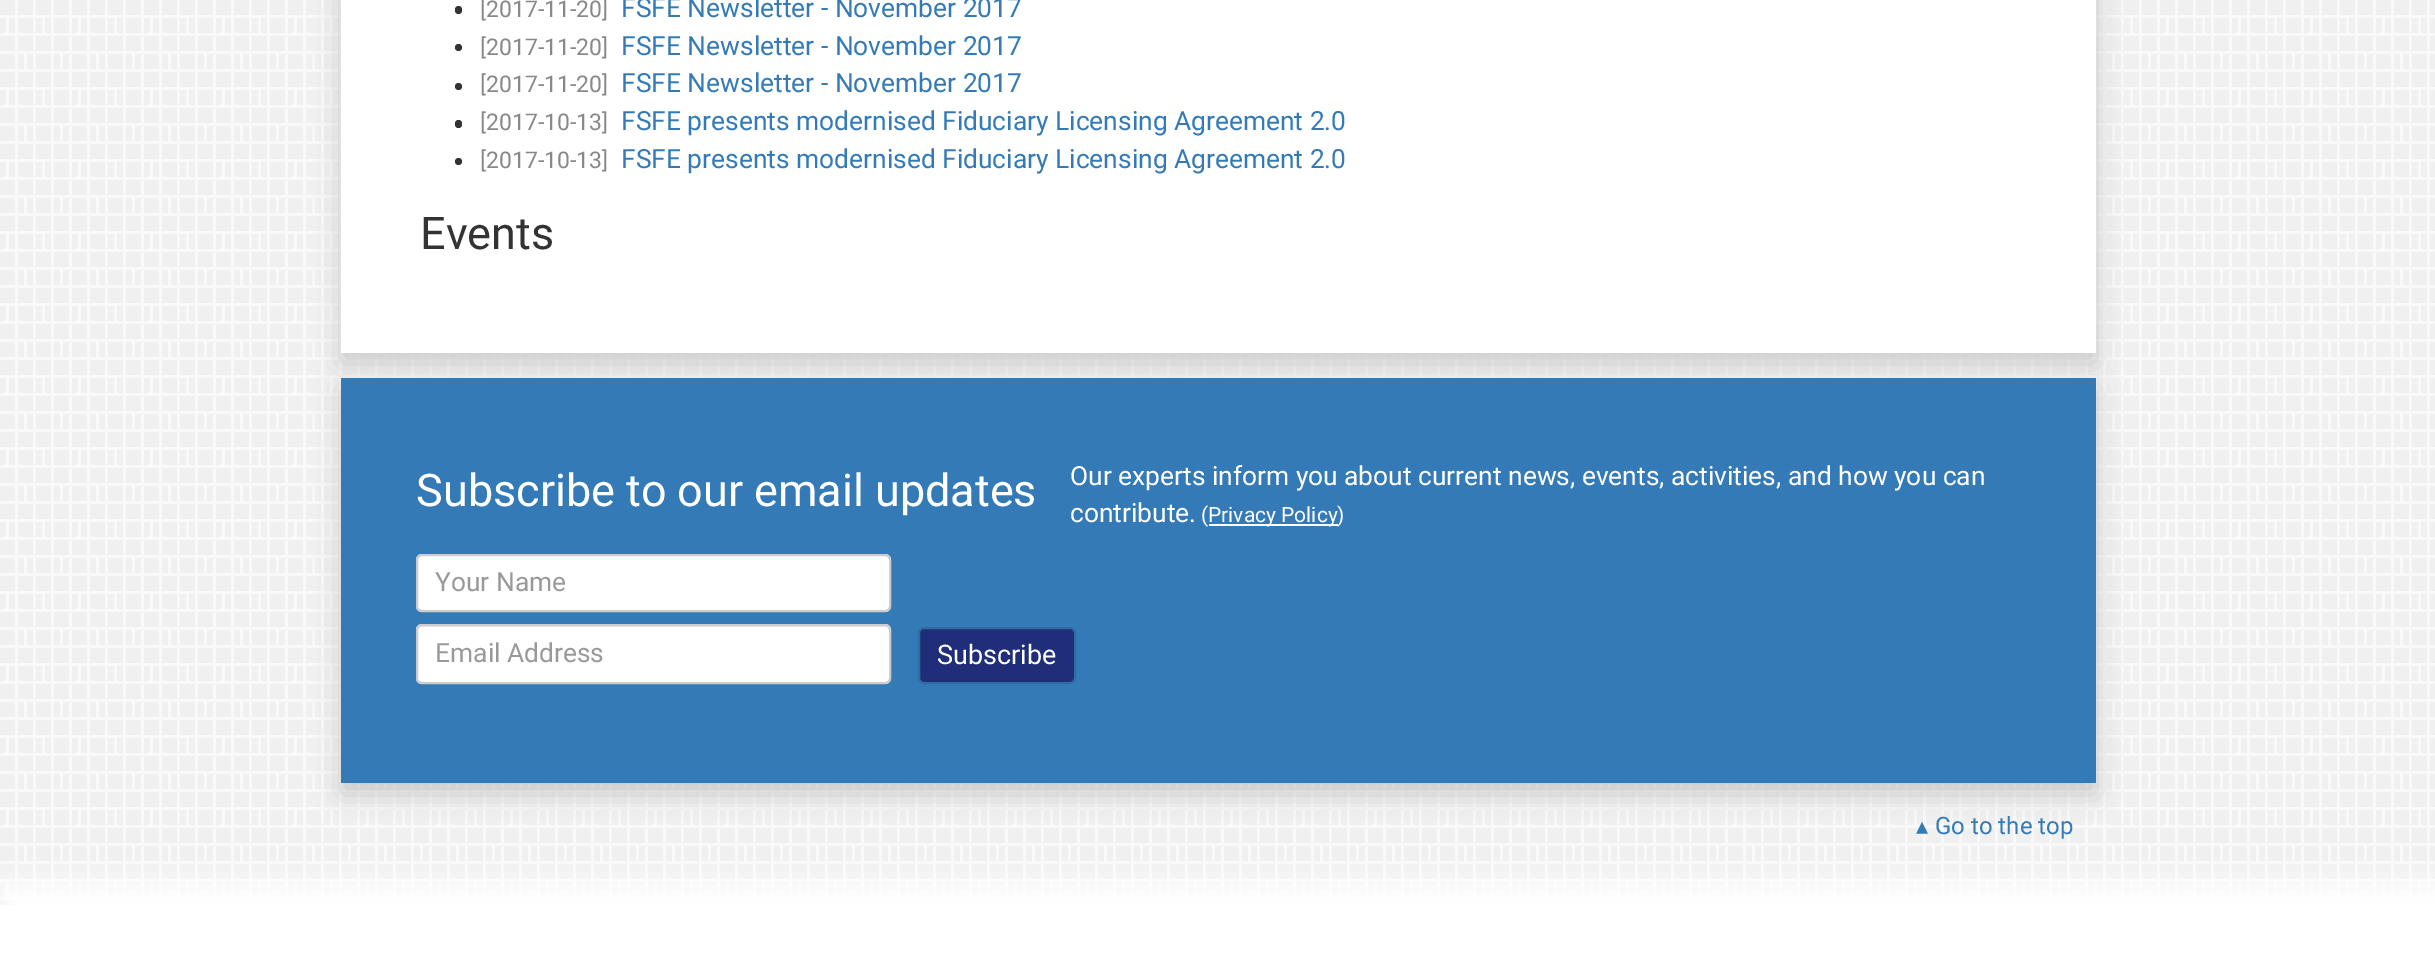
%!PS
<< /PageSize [2435 959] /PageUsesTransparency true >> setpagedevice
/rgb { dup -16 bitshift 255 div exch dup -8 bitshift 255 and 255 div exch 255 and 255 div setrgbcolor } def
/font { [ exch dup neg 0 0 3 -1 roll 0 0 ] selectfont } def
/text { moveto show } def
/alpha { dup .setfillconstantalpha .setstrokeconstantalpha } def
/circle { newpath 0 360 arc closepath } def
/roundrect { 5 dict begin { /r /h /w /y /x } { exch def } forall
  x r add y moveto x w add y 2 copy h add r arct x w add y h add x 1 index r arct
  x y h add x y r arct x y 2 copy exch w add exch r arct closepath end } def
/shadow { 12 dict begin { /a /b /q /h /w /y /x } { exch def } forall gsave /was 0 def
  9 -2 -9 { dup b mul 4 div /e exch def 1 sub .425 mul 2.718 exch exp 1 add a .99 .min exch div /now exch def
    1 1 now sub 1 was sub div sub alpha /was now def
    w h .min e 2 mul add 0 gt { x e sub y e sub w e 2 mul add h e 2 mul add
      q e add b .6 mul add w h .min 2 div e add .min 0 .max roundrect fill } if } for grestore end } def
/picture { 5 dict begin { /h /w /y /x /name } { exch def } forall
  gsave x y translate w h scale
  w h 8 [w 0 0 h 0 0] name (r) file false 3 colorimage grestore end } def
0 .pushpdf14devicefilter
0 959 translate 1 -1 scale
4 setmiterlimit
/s1 { /Roboto-Regular 23 font 16#888888 rgb } def
/s2 { /Roboto-Regular 26.4 font 16#337AB7 rgb } def
/s3 { /Roboto-Regular 45 font 16#333333 rgb } def
/s4 { /Roboto-Regular 45 font 16#FFFFFF rgb } def
/s5 { /Roboto-Regular 26.4 font 16#FFFFFF rgb } def
/s6 { /Roboto-Regular 21 font 16#FFFFFF rgb } def
/s7 { /Roboto-Regular 26.4 font 16#999999 rgb } def
/s8 { /Roboto-Regular 27 font 16#FFFFFF rgb } def
/s9 { /DejaVuSans-Regular 24 font 16#337AB7 rgb } def
/s10 { /Roboto-Regular 24 font 16#337AB7 rgb } def
16#FFFFFF rgb
0 0 2435 959 rectfill
(pic1.raw) 0 0 2435 905 picture
16#C8C8C8 rgb
341 -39 1755 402 0 13 1 shadow
16#FFFFFF rgb
341 0 1755 353 rectfill
16#333333 rgb
455 6 7 8 3.5 roundrect fill
s1
([2017-11-20]) 480 17 text
s2
(FSFE Newsletter - November 2017) 621 17 text
16#333333 rgb
458.5 47.5 3.5 circle fill
s1
([2017-11-20]) 480 55 text
s2
(FSFE Newsletter - November 2017) 621 55 text
16#333333 rgb
458.5 86.5 3.5 circle fill
s1
([2017-11-20]) 480 92 text
s2
(FSFE Newsletter - November 2017) 621 92 text
16#333333 rgb
455 120 7 8 3.5 roundrect fill
s1
([2017-10-13]) 480 130 text
s2
(FSFE presents modernised Fiduciary Licensing Agreement 2.0) 621 130 text
16#333333 rgb
458.5 161.5 3.5 circle fill
s1
([2017-10-13]) 480 168 text
s2
(FSFE presents modernised Fiduciary Licensing Agreement 2.0) 621 168 text
s3
(Events) 420 249 text
16#C8C8C8 rgb
341 389 1755 405 0 13 1 shadow
16#337AB7 rgb
341 378 1755 405 rectfill
s4
(Subscribe to our email updates) 416 506 text
s5
(Our experts inform you about current news, events, activities, and how you can) 1070 485 text
(contribute.) 1070 522 text
s6
(\() 1201 522 text
1209 524 129 2 rectfill
(Privacy Policy\)) 1208 522 text
416 554 475 58 6 roundrect fill
16#ECECEC rgb
422 556 moveto 885 556 lineto 887 556 890 559 890 561 curveto 890 560 lineto 890 557 888 555 885 555 curveto 422 555 lineto 419 555 417 557 417 560 curveto 417 561 lineto 417 559 419 556 422 556 curveto closepath fill
16#CCCCCC rgb
2 setlinewidth
417 555 473 56 5 roundrect stroke
s7
(Your Name) 435 591 text
16#FFFFFF rgb
416 624 475 60 6 roundrect fill
16#ECECEC rgb
422 627 moveto 885 627 lineto 887 627 890 629 890 632 curveto 890 631 lineto 890 628 888 626 885 626 curveto 422 626 lineto 419 626 417 628 417 631 curveto 417 632 lineto 417 629 419 627 422 627 curveto closepath fill
16#CCCCCC rgb
417 625 473 58 5 roundrect stroke
s7
(Email Address) 435 662 text
16#202D79 rgb
919 628 156 55 5 roundrect gsave fill grestore
16#2E6DA4 rgb
stroke
s8
(Subscribe) 937 664 text
s9
(▴) 1916 834 text
s10
(Go to the top) 1935 834 text
16#FFFFFF rgb
0 881 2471 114 0 12 1 shadow
.poppdf14devicefilter showpage
